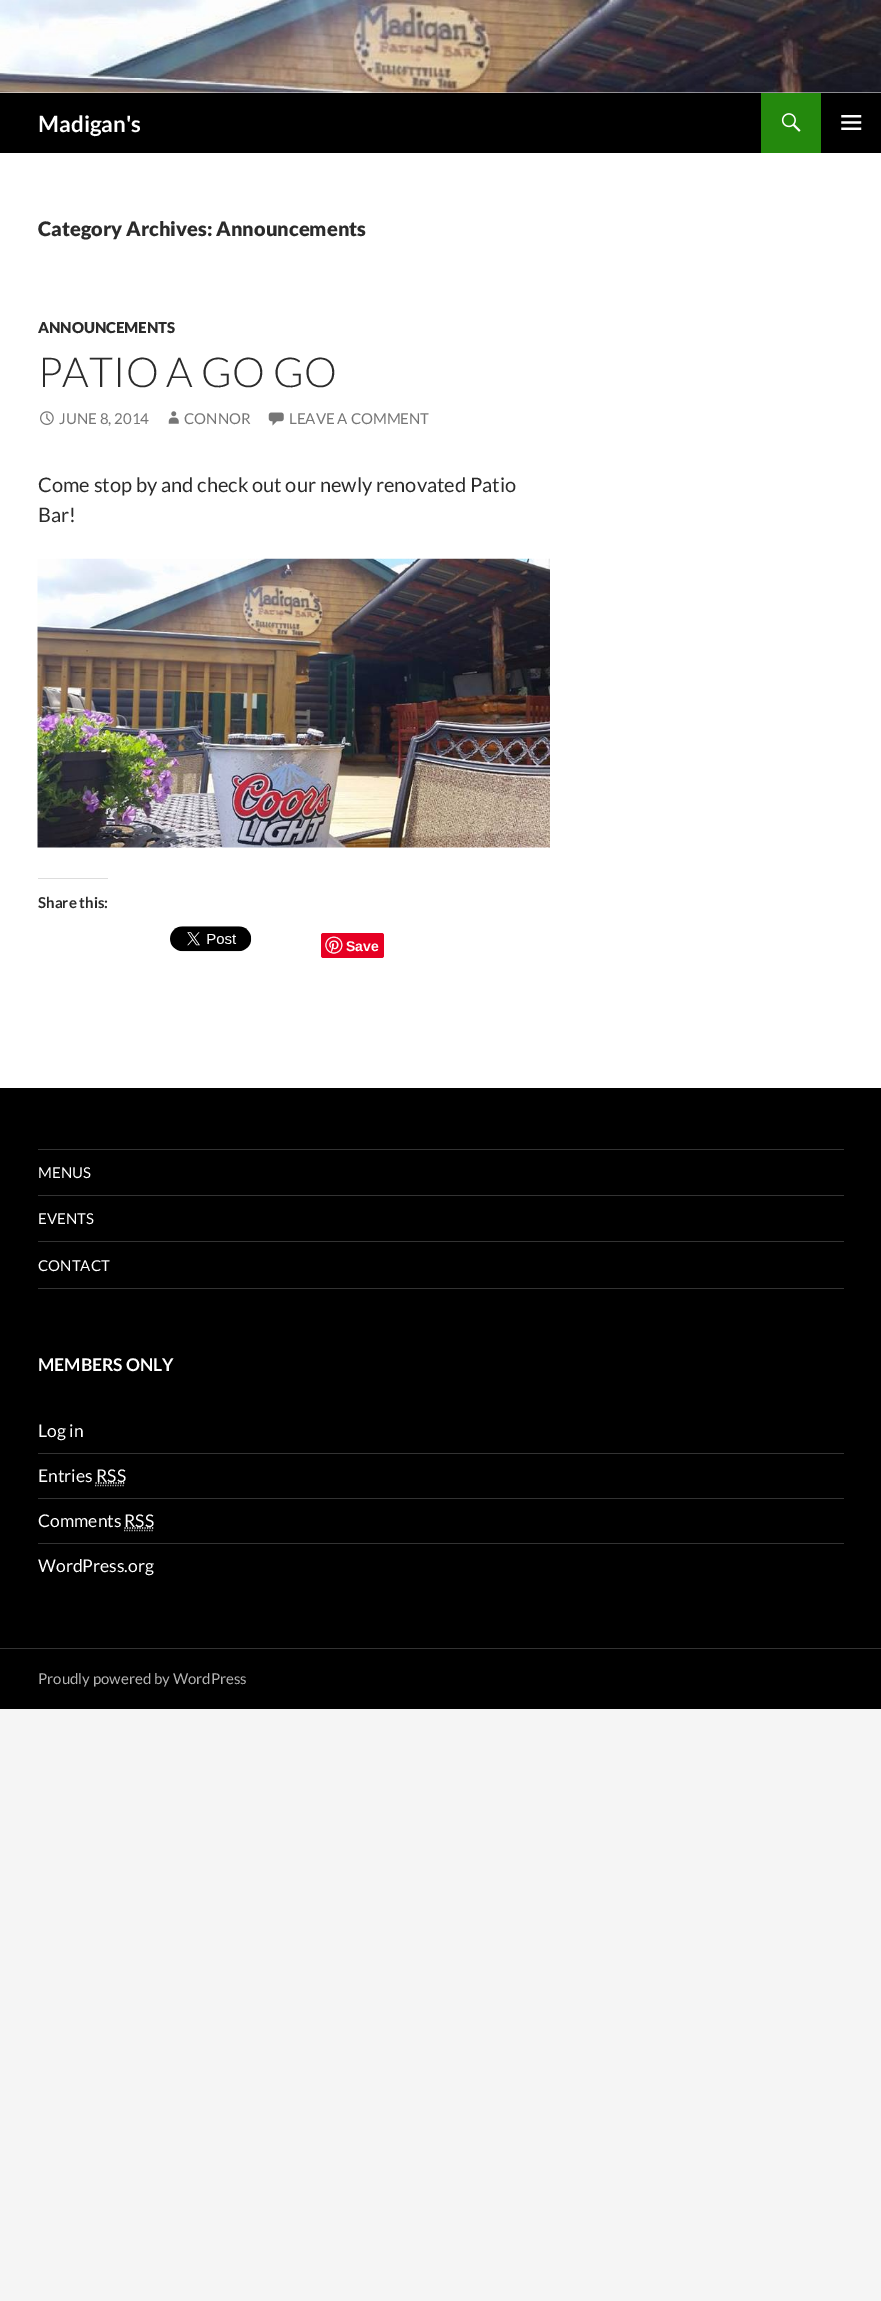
%!PS
<< /PageSize [881 2301] >> setpagedevice
/rgb { dup -16 bitshift 255 div exch dup -8 bitshift 255 and 255 div exch 255 and 255 div setrgbcolor } def
/font { [ exch dup neg 0 0 3 -1 roll 0 0 ] selectfont } def
/text { moveto show } def
/roundrect { 5 dict begin { /r /h /w /y /x } { exch def } forall
  x r add y moveto x w add y 2 copy h add r arct x w add y h add x 1 index r arct
  x y h add x y r arct x y 2 copy exch w add exch r arct closepath end } def
/picture { 5 dict begin { /h /w /y /x /name } { exch def } forall
  gsave x y translate w h scale
  w h 8 [w 0 0 h 0 0] name (r) file false 3 colorimage grestore end } def
0 2301 translate 1 -1 scale
4 setmiterlimit
/s1 { /Lato-Bold 22.5 font 16#FFFFFF rgb } def
/s2 { /Lato-Black 20 font 16#2B2B2B rgb } def
/s3 { /Lato-Black 15 font 16#2B2B2B rgb } def
/s4 { /Lato-Light 41.25 font 16#2B2B2B rgb } def
/s5 { /Lato-Regular 15 font 16#767676 rgb } def
/s6 { /Lato-Regular 20 font 16#2B2B2B rgb } def
/s7 { /Lato-Bold 15 font 16#2B2B2B rgb } def
/s8 { /LiberationSans-Bold 14 font 16#FFFFFF rgb } def
/s9 { /Lato-Regular 15 font 16#FFFFFF rgb } def
/s10 { /Lato-Bold 17.5 font 16#FFFFFF rgb } def
/s11 { /Lato-Regular 17.5 font 16#FFFFFF rgb } def
/s12 { /Lato-Regular 15 font 16#B3B3B3 rgb } def
16#F5F5F5 rgb
0 0 881 2301 rectfill
16#FFFFFF rgb
0 92 881 996 rectfill
(pic1.raw) 0 0 881 93 picture
16#000000 rgb
0 93 881 60 rectfill
s1
(Madigan's) 38 132 text
16#24890D rgb
761 93 60 60 rectfill
(pic2.raw) 781 113 20 19 picture
(pic3.raw) 841 115 21 15 picture
s2
(Category Archives: Announcements) 38 236 text
s3
(ANNOUNCEMENTS) 38 333 text
s4
(PATIO A GO GO) 38 387 text
(pic4.raw) 40 411 14 14 picture
s5
(JUNE 8, 2014) 59 424 text
(pic5.raw) 168 411 11 13 picture
(CONNOR) 184 424 text
(pic6.raw) 268 412 16 14 picture
(LEAVE A COMMENT) 289 424 text
s6
(Come stop by and check out our newly renovated Patio) 38 492 text
(Bar!) 38 522 text
(pic7.raw) 37 558 513 290 picture
16#DDDDDD rgb
38 878 70 1 rectfill
s7
(Share this:) 38 908 text
(pic8.raw) 170 926 82 26 picture
16#E60023 rgb
321 933 63 25 2.5 roundrect fill
(pic9.raw) 325 936 18 18 picture
s8
(Save) 346 951 text
16#000000 rgb
0 1088 881 560 rectfill
16#333333 rgb
0 1648 881 1 rectfill
38 1288 806 1 rectfill
38 1149 806 1 rectfill
s9
(MENUS) 38 1178 text
16#333333 rgb
38 1195 806 1 rectfill
s9
(EVENTS) 38 1224 text
16#333333 rgb
38 1241 806 1 rectfill
s9
(CONTACT) 38 1271 text
s10
(MEMBERS ONLY) 38 1371 text
s11
(Log in) 38 1437 text
16#333333 rgb
38 1453 806 1 rectfill
s11
(Entries) 38 1482 text
1.2 setlinewidth
[1.25 1.25] 0 setdash
95.5 1483 moveto 125.5 1483 lineto stroke
(RSS) 96 1482 text
16#B3B3B3 rgb
95 1485.5 moveto 125 1485.5 lineto stroke
16#333333 rgb
38 1498 806 1 rectfill
s11
(Comments) 38 1527 text
124.5 1528 moveto 154 1528 lineto stroke
(RSS) 124 1527 text
16#B3B3B3 rgb
124 1530.5 moveto 154 1530.5 lineto stroke
16#333333 rgb
38 1543 806 1 rectfill
s11
(WordPress.org) 38 1572 text
16#000000 rgb
0 1649 881 60 rectfill
s12
(Proudly powered by WordPress) 38 1684 text
showpage
